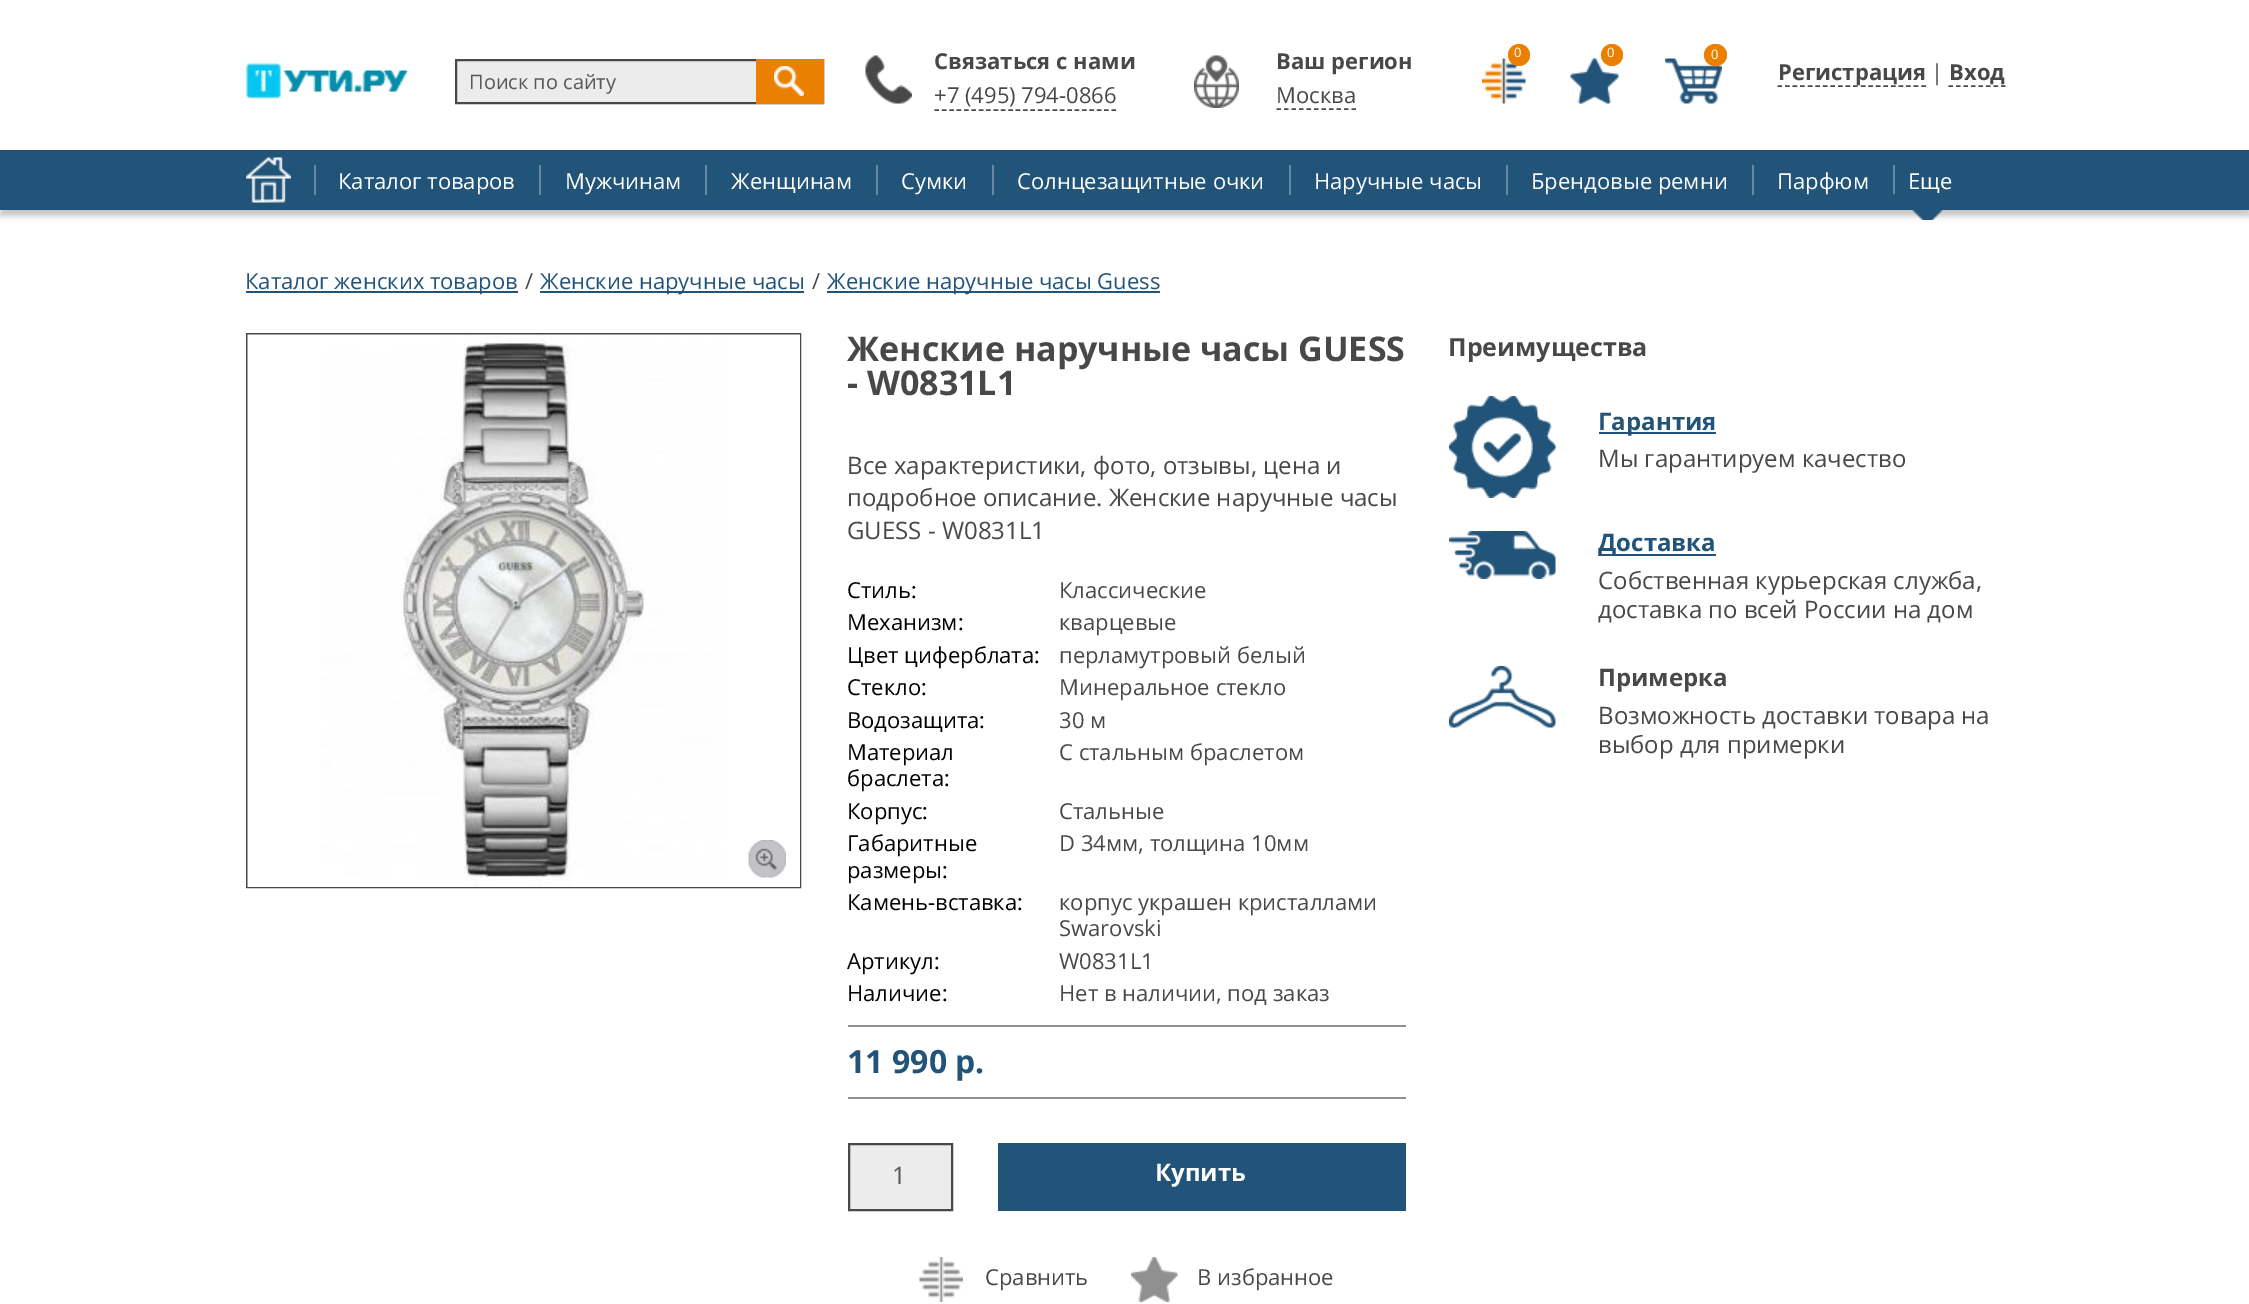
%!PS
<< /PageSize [2249 1304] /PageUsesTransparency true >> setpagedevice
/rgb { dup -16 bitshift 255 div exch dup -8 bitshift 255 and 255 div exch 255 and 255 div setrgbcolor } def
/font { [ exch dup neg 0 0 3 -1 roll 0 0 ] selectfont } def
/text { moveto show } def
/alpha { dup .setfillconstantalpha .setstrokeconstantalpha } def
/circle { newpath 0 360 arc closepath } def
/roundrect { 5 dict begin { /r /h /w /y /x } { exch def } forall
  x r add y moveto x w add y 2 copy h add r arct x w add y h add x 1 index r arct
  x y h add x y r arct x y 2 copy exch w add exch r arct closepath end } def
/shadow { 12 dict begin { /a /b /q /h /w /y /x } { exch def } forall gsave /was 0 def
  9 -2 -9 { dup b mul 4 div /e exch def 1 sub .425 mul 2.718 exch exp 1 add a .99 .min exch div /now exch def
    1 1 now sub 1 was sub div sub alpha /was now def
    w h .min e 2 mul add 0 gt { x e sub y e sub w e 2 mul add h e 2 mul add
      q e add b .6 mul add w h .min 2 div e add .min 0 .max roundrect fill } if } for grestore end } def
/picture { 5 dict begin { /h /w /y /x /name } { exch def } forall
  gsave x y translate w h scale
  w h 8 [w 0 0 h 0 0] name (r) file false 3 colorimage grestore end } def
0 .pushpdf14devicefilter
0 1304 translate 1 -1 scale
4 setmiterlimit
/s1 { /OpenSans-Regular 20 font 16#575757 rgb } def
/s2 { /OpenSans-Bold 22 font 16#484848 rgb } def
/s3 { /OpenSans-Regular 22 font 16#484848 rgb } def
/s4 { /OpenSans-Regular 13 font 16#FFFFFF rgb } def
/s5 { /OpenSans-Regular 22 font 16#FFFFFF rgb } def
/s6 { /OpenSans-Regular 22 font 16#225378 rgb } def
/s7 { /OpenSans-Bold 34 font 16#484848 rgb } def
/s8 { /OpenSans-Regular 24 font 16#484848 rgb } def
/s9 { /OpenSans-Regular 22 font 16#000000 rgb } def
/s10 { /OpenSans-Bold 32 font 16#225378 rgb } def
/s11 { /OpenSans-Regular 24 font 16#575757 rgb } def
/s12 { /OpenSans-Bold 24 font 16#FFFFFF rgb } def
/s13 { /OpenSans-Bold 25 font 16#484848 rgb } def
/s14 { /OpenSans-Bold 24 font 16#225378 rgb } def
/s15 { /OpenSans-Bold 24 font 16#484848 rgb } def
16#FFFFFF rgb
0 0 2249 1304 rectfill
(pic1.raw) 246 63 162 36 picture
16#ECECEC rgb
457 61 299 41 rectfill
16#484848 rgb
2 setlinewidth
456 60 367 43 rectstroke
s1
(Поиск по сайту) 469 89 text
16#EB7F00 rgb
756 59 68 45 rectfill
(pic2.raw) 774 66 30 30 picture
(pic3.raw) 865 55 47 49 picture
s2
(Связаться с нами) 934 69 text
s3
(+7 \(495\) 794-0866) 934 103 text
1.5 setlinewidth
[4.5 2.88] 0 setdash
934.5 110 moveto 1116 110 lineto stroke
(pic4.raw) 1194 55 45 53 picture
s2
(Ваш регион) 1276 69 text
[4.5 3] 0 setdash
1276.5 109 moveto 1356 109 lineto stroke
s3
(Москва) 1276 103 text
(pic5.raw) 1482 58 44 46 picture
16#EB7F00 rgb
1519 55 11 circle fill
s4
(0) 1514 57 text
(pic6.raw) 1570 58 49 46 picture
16#EB7F00 rgb
1612 55 11 circle fill
s4
(0) 1607 57 text
(pic7.raw) 1665 58 57 46 picture
16#EB7F00 rgb
1704 44 23 22 11 roundrect fill
s4
(0) 1711 59 text
16#484848 rgb
[4.5 3.07] 0 setdash
1777.5 86 moveto 1926 86 lineto stroke
s2
(Регистрация) 1778 80 text
s3
(|) 1931 80 text
s2
(Вход) 1949 80 text
[4.5 3] 0 setdash
1948.5 86 moveto 2005.5 86 lineto stroke
16#C5C5C4 rgb
0 156 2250 60 0 3 1 shadow
16#225378 rgb
0 150 2249 60 rectfill
(pic8.raw) 246 157 45 46 picture
16#6587A1 rgb
314 165 2 30 rectfill
s5
(Каталог товаров) 338 189 text
16#6587A1 rgb
539 165 2 30 rectfill
s5
(Мужчинам) 565 189 text
16#6587A1 rgb
705 165 2 30 rectfill
s5
(Женщинам) 731 189 text
16#6587A1 rgb
876 165 2 30 rectfill
s5
(Сумки) 901 189 text
16#6587A1 rgb
992 165 2 30 rectfill
s5
(Солнцезащитные очки) 1017 189 text
16#6587A1 rgb
1289 165 2 30 rectfill
s5
(Наручные часы) 1314 189 text
16#6587A1 rgb
1506 165 2 30 rectfill
s5
(Брендовые ремни) 1531 189 text
16#6587A1 rgb
1752 165 2 30 rectfill
s5
(Парфюм) 1777 189 text
16#6587A1 rgb
1893 165 2 29 rectfill
s5
(Еще) 1908 189 text
(pic9.raw) 1912 210 31 10 picture
16#225378 rgb
246 291 272 2 rectfill
(Каталог женских товаров) 245 289 text
s3
(/) 525 289 text
16#225378 rgb
540 291 264 2 rectfill
(Женские наручные часы) 540 289 text
s3
(/) 812 289 text
16#225378 rgb
827 291 333 2 rectfill
(Женские наручные часы Guess) 827 289 text
16#484848 rgb
2 setlinewidth
[] 0 setdash
247 334 553 553 rectstroke
(pic10.raw) 247 334 553 553 picture
(pic11.raw) 748 840 38 38 picture
s7
(Женские наручные часы GUESS) 847 361 text
(- W0831L1) 847 395 text
s8
(Все характеристики, фото, отзывы, цена и) 847 474 text
(подробное описание. Женские наручные часы) 847 506 text
(GUESS - W0831L1) 847 539 text
s9
(Стиль:) 847 598 text
s3
(Классические) 1059 598 text
s9
(Механизм:) 847 630 text
s3
(кварцевые) 1059 630 text
s9
(Цвет циферблата:) 847 663 text
s3
(перламутровый белый) 1059 663 text
s9
(Стекло:) 847 695 text
s3
(Минеральное стекло) 1059 695 text
s9
(Водозащита:) 847 728 text
s3
(30 м) 1059 728 text
s9
(Материал) 847 760 text
(браслета:) 847 786 text
s3
(С стальным браслетом) 1059 760 text
s9
(Корпус:) 847 819 text
s3
(Стальные) 1059 819 text
s9
(Габаритные) 847 851 text
(размеры:) 847 878 text
s3
(D 34мм, толщина 10мм) 1059 851 text
s9
(Камень-вставка:) 847 910 text
s3
(корпус украшен кристаллами) 1059 910 text
(Swarovski) 1059 936 text
s9
(Артикул:) 847 969 text
s3
(W0831L1) 1059 969 text
s9
(Наличие:) 847 1001 text
s3
(Нет в наличии, под заказ) 1059 1001 text
16#909090 rgb
848 1025 558 2 rectfill
848 1097 558 2 rectfill
s10
(11 990 р.) 847 1073 text
16#ECECEC rgb
849 1144 moveto 952 1144 lineto 952 1210 lineto 849 1210 lineto closepath gsave fill grestore
16#484848 rgb
stroke
s11
(1) 892 1184 text
16#225378 rgb
998 1143 408 68 rectfill
s12
(Купить) 1155 1181 text
(pic12.raw) 919 1257 44 45 picture
s3
(Сравнить) 985 1285 text
(pic13.raw) 1131 1257 47 45 picture
(В избранное) 1197 1285 text
s13
(Преимущества) 1448 356 text
(pic14.raw) 1449 396 107 102 picture
16#225378 rgb
1599 432 117 2 rectfill
s14
(Гарантия) 1598 430 text
s8
(Мы гарантируем качество) 1598 467 text
(pic15.raw) 1449 531 107 48 picture
16#225378 rgb
1599 554 117 2 rectfill
s14
(Доставка) 1598 551 text
s8
(Собственная курьерская служба,) 1598 589 text
(доставка по всей России на дом) 1598 618 text
(pic16.raw) 1449 666 107 62 picture
s15
(Примерка) 1598 686 text
s8
(Возможность доставки товара на) 1598 724 text
(выбор для примерки) 1598 753 text
.poppdf14devicefilter showpage
